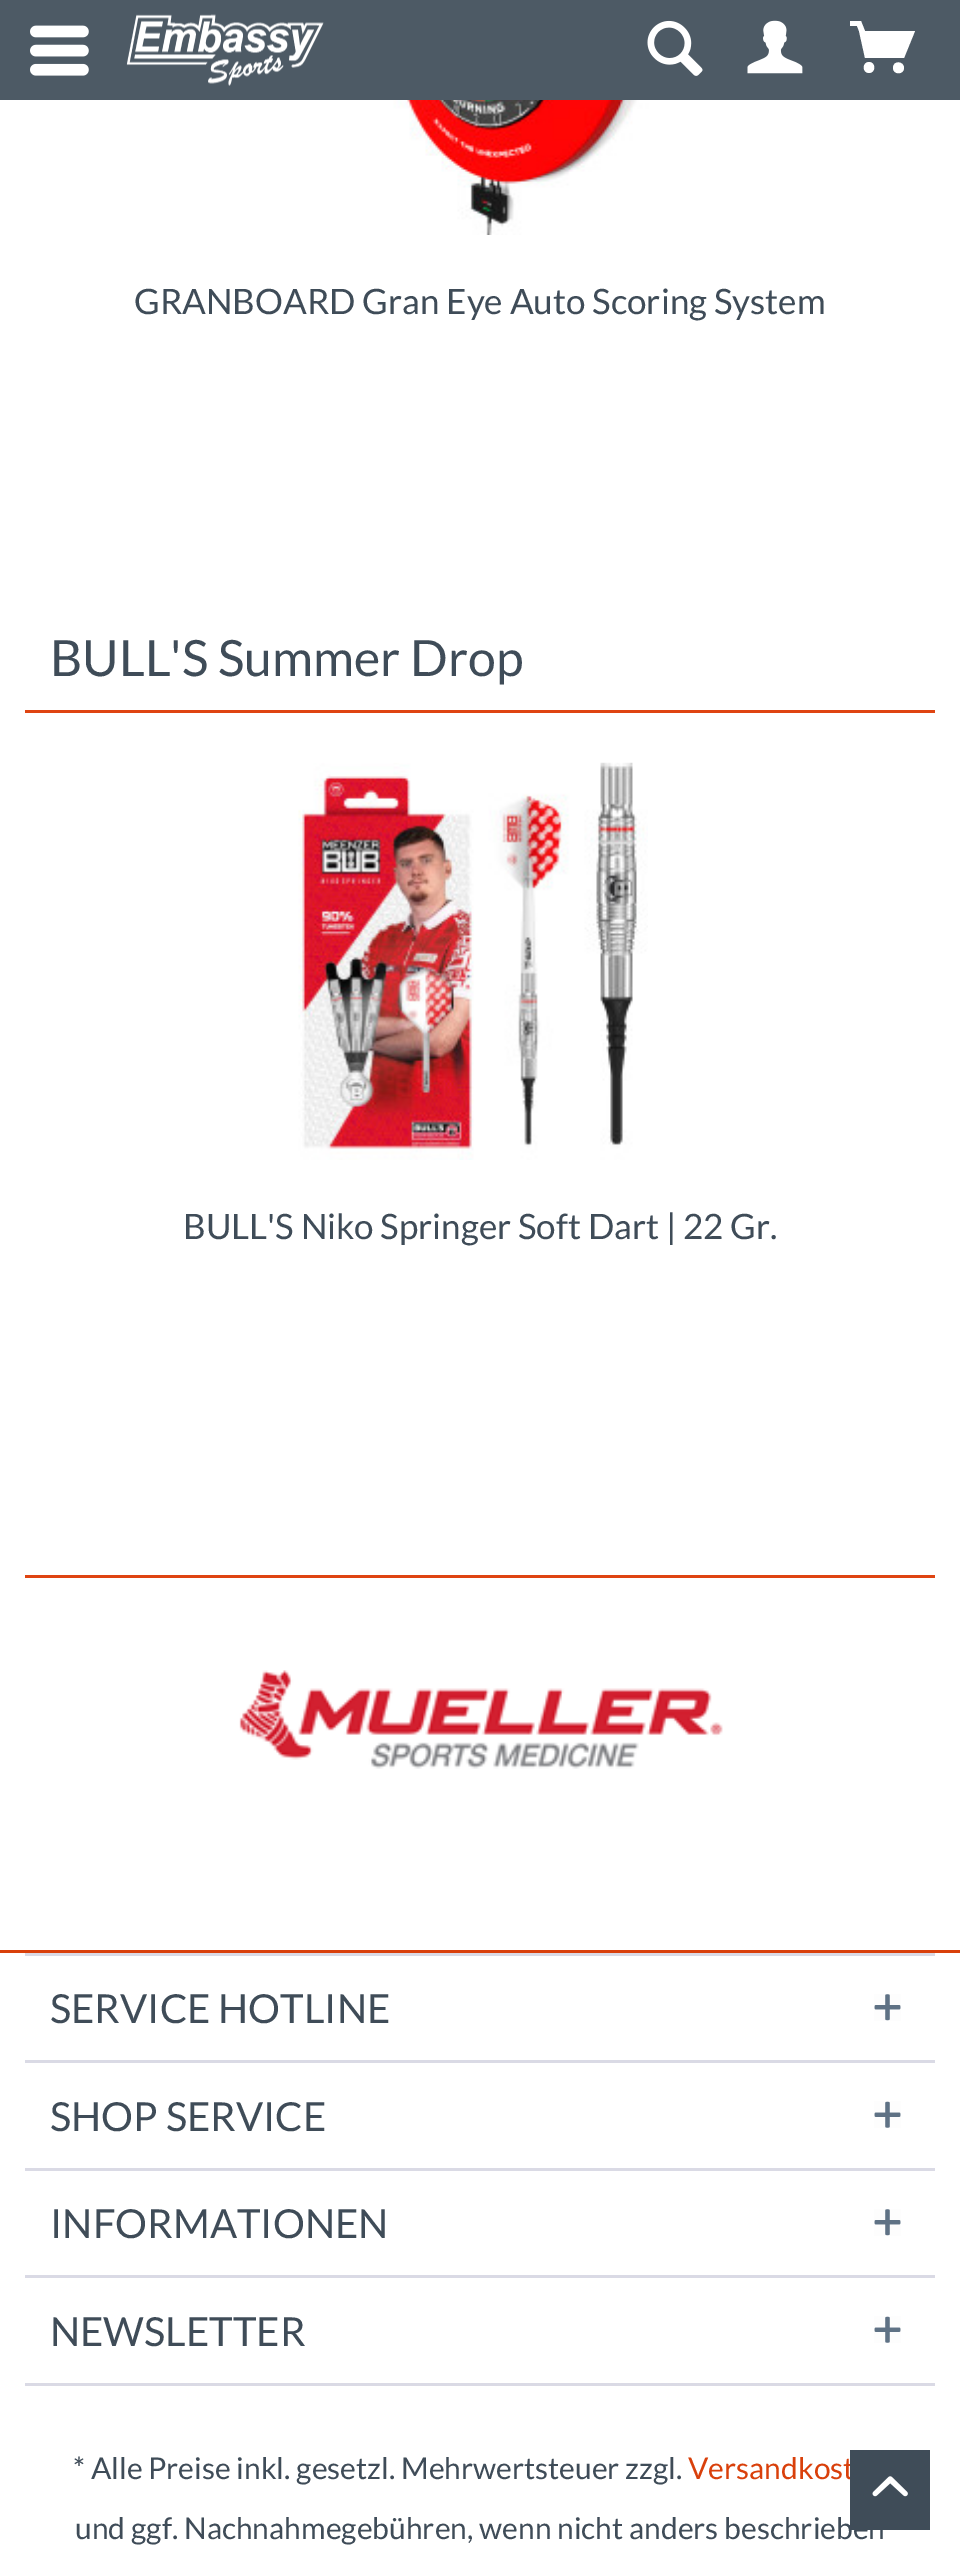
%!PS
<< /PageSize [960 2560] >> setpagedevice
/rgb { dup -16 bitshift 255 div exch dup -8 bitshift 255 and 255 div exch 255 and 255 div setrgbcolor } def
/font { [ exch dup neg 0 0 3 -1 roll 0 0 ] selectfont } def
/text { moveto show } def
/picture { 5 dict begin { /h /w /y /x /name } { exch def } forall
  gsave x y translate w h scale
  w h 8 [w 0 0 h 0 0] name (r) file false 3 colorimage grestore end } def
0 2560 translate 1 -1 scale
4 setmiterlimit
/s1 { /Lato-Regular 35 font 16#3F4C58 rgb } def
/s2 { /Lato-Regular 50 font 16#3F4C58 rgb } def
/s3 { /Lato-Regular 40 font 16#3F4C58 rgb } def
/s4 { /Lato-Regular 30 font 16#3F4C58 rgb } def
/s5 { /Lato-Regular 30 font 16#D9400B rgb } def
16#FFFFFF rgb
0 0 960 2560 rectfill
16#4D5A65 rgb
0 0 960 100 rectfill
(pic1.raw) 126 14 198 72 picture
(pic2.raw) 30 25 59 51 picture
(pic3.raw) 647 20 56 56 picture
(pic4.raw) 747 20 56 54 picture
16#FFFFFF rgb
865 58 moveto 904 58 lineto 915 31 lineto 865 31 lineto 861 21 lineto 850 21 lineto 850 26 lineto 857 26 lineto 859 31 lineto closepath 869 62 moveto 862 62 862 73 869 73 curveto 876 73 876 62 869 62 curveto closepath 904 68 moveto 904 75 893 75 893 68 curveto 893 60 904 61 904 68 curveto closepath fill
(pic5.raw) 393 100 262 135 picture
s1
(GRANBOARD Gran Eye Auto Scoring System) 134 314 text
16#DF4412 rgb
25 710 910 3 rectfill
s2
(BULL'S Summer Drop) 50 676 text
(pic6.raw) 298 762 350 398 picture
s1
(BULL'S Niko Springer Soft Dart | 22 Gr.) 183 1239 text
16#DF4412 rgb
25 1575 910 3 rectfill
(pic7.raw) 239 1670 484 99 picture
16#D9400B rgb
0 1950 960 3 rectfill
16#DADAE5 rgb
25 1953 910 3 rectfill
s3
(SERVICE HOTLINE) 50 2023 text
(pic8.raw) 874 1994 27 27 picture
16#DADAE5 rgb
25 2060 910 3 rectfill
s3
(SHOP SERVICE) 50 2131 text
(pic9.raw) 874 2101 27 27 picture
16#DADAE5 rgb
25 2168 910 3 rectfill
s3
(INFORMATIONEN) 50 2238 text
(pic8.raw) 874 2209 27 27 picture
16#DADAE5 rgb
25 2275 910 3 rectfill
25 2383 910 3 rectfill
s3
(NEWSLETTER) 50 2346 text
(pic9.raw) 874 2316 27 27 picture
s4
(* Alle Preise inkl. gesetzl. Mehrwertsteuer zzgl.) 73 2479 text
s5
(Versandkost) 688 2479 text
s4
(und ggf. Nachnahmegebühren, wenn nicht anders beschrieben) 75 2539 text
850 2450 80 80 rectfill
(pic10.raw) 872 2476 36 21 picture
showpage
